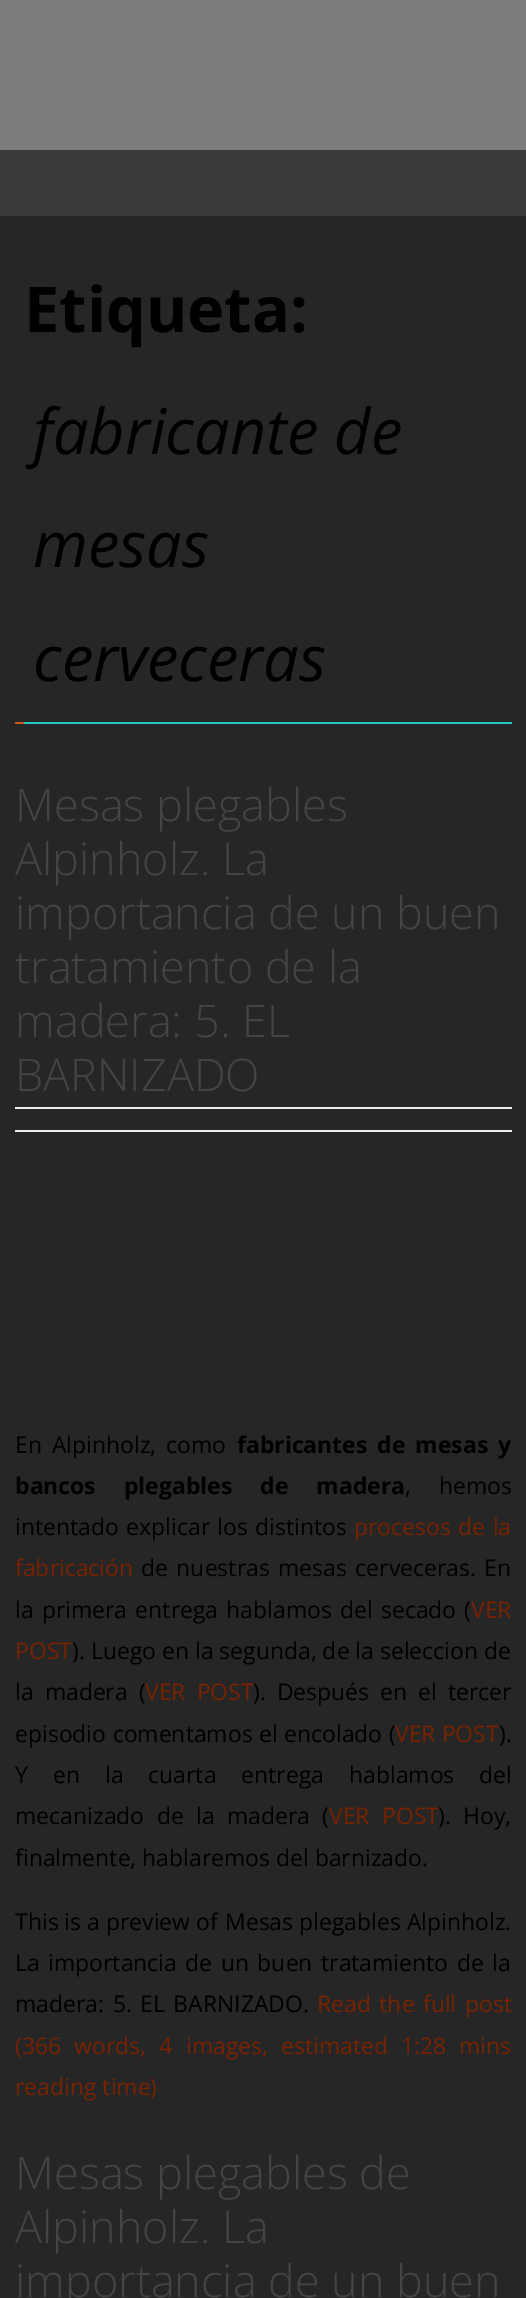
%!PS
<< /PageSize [526 2298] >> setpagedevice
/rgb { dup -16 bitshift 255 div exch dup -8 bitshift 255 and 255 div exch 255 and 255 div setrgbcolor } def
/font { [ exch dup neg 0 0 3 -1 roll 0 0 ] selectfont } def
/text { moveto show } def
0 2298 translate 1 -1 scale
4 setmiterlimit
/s1 { /OpenSans-Bold 63 font 16#000000 rgb } def
/s2 { /OpenSans-Italic 63 font 16#000000 rgb } def
/s3 { /OpenSans-Light 45 font 16#444444 rgb } def
/s4 { /OpenSans-Regular 22.95 font 16#772200 rgb } def
/s5 { /OpenSans-Regular 22.95 font 16#000000 rgb } def
16#7C7C7C rgb
0 0 526 2298 rectfill
16#3A3B3D rgb
0 150 526 66 rectfill
16#262626 rgb
0 216 526 2082 rectfill
16#CB5920 rgb
15 722 9 2 rectfill
s1
(Etiqueta:) 24 332 text
16#1EC8BB rgb
24 722 488 2 rectfill
s2
(fabricante de) 33 454 text
(mesas) 33 567 text
(cerveceras) 33 681 text
s3
(Mesas plegables) 15 821 text
(Alpinholz. La) 15 875 text
(importancia de un buen) 15 929 text
(tratamiento de la) 15 983 text
(madera: 5. EL) 15 1037 text
(BARNIZADO) 15 1091 text
16#EEEEEE rgb
15 1107 497 2 rectfill
15 1130 497 2 rectfill
/OpenSans-Regular 22.95 font
16#000000 rgb
15 1453 moveto 4 0 32 (En Alpinholz, como) widthshow
/OpenSans-Bold 22.95 font
237 1453 moveto 4 0 32 (fabricantes de mesas y) widthshow
15 1494 moveto 22 0 32 (bancos plegables de madera) widthshow
/OpenSans-Regular 22.95 font
405 1494 moveto 22 0 32 (, hemos) widthshow
15 1535 moveto 1.5 0 32 (intentado explicar los distintos) widthshow
16#772200 rgb
354 1535 moveto 1.5 0 32 (procesos de la) widthshow
(fabricación) 15 1576 text
16#000000 rgb
141 1576 moveto 2.5 0 32 (de nuestras mesas cerveceras. En) widthshow
15 1618 moveto 2.25 0 32 (la primera entrega hablamos del secado \() widthshow
s4
(VER) 471 1618 text
(POST) 15 1659 text
s5
(\). Luego en la segunda, de la seleccion de) 72 1659 text
15 1700 moveto 5 0 32 (la madera \() widthshow
16#772200 rgb
145 1700 moveto 5 0 32 (VER POST) widthshow
16#000000 rgb
253 1700 moveto 5 0 32 (\). Después en el tercer) widthshow
15 1742 moveto 0.5 0 32 (episodio comentamos el encolado \() widthshow
s4
(VER POST) 395 1742 text
s5
(\).) 499 1742 text
15 1783 moveto 19 0 32 (Y en la cuarta entrega hablamos del) widthshow
15 1824 moveto 6.5 0 32 (mecanizado de la madera \() widthshow
16#772200 rgb
329 1824 moveto 6.5 0 32 (VER POST) widthshow
16#000000 rgb
438 1824 moveto 6.5 0 32 (\). Hoy,) widthshow
(finalmente, hablaremos del barnizado.) 15 1866 text
(This is a preview of) 15 1930 text
(Mesas plegables Alpinholz.) 225 1930 text
15 1971 moveto 2.5 0 32 (La importancia de un buen tratamiento de la) widthshow
15 2012 moveto 2.5 0 32 (madera: 5. EL BARNIZADO) widthshow
(.) 303 2012 text
16#772200 rgb
317 2012 moveto 2.5 0 32 (Read the full post) widthshow
15 2054 moveto 7.25 0 32 (\(366 words, 4 images, estimated 1:28) widthshow
(mins) 459 2054 text
(reading time\)) 15 2095 text
s3
(Mesas plegables de) 15 2189 text
(Alpinholz. La) 15 2243 text
(importancia de un buen) 15 2297 text
showpage
